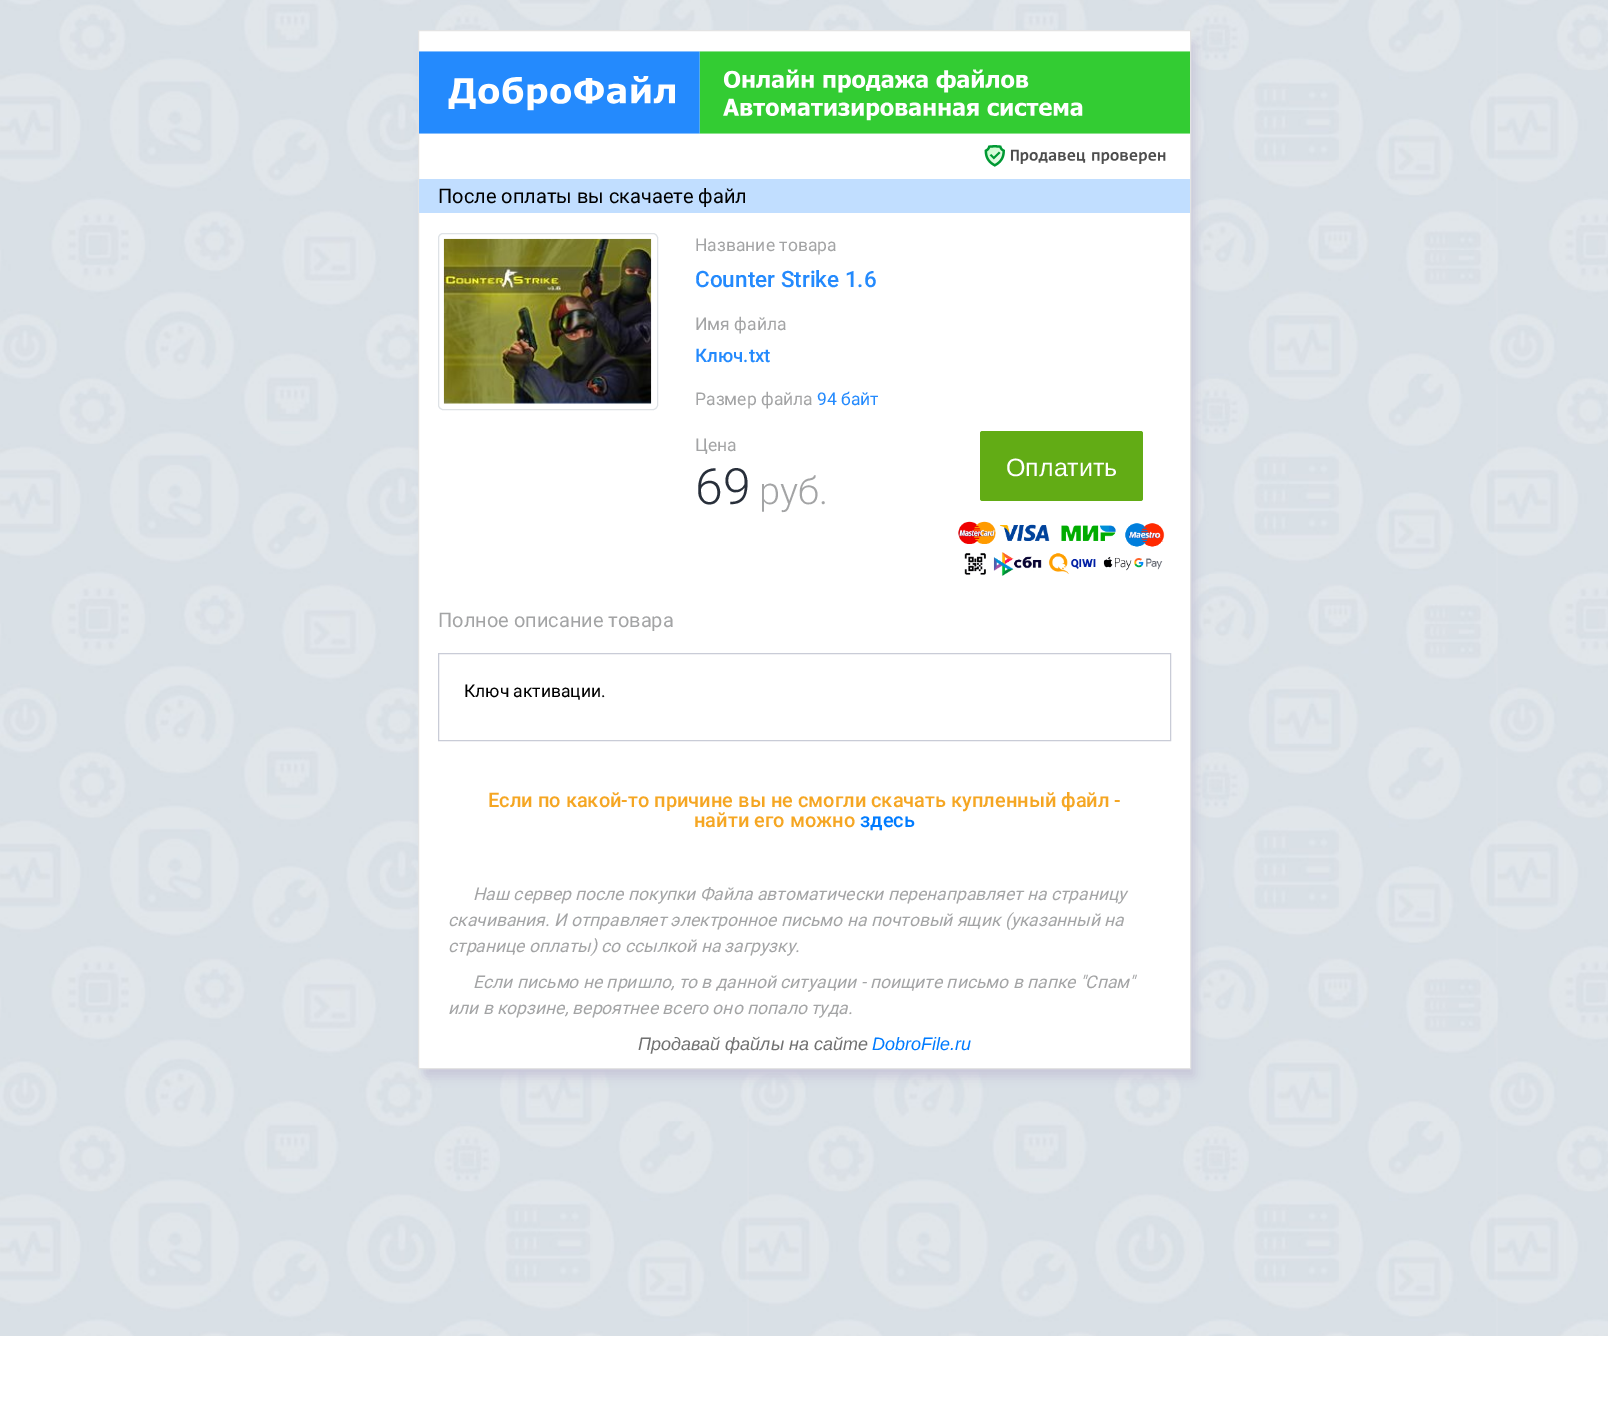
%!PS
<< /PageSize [1608 1405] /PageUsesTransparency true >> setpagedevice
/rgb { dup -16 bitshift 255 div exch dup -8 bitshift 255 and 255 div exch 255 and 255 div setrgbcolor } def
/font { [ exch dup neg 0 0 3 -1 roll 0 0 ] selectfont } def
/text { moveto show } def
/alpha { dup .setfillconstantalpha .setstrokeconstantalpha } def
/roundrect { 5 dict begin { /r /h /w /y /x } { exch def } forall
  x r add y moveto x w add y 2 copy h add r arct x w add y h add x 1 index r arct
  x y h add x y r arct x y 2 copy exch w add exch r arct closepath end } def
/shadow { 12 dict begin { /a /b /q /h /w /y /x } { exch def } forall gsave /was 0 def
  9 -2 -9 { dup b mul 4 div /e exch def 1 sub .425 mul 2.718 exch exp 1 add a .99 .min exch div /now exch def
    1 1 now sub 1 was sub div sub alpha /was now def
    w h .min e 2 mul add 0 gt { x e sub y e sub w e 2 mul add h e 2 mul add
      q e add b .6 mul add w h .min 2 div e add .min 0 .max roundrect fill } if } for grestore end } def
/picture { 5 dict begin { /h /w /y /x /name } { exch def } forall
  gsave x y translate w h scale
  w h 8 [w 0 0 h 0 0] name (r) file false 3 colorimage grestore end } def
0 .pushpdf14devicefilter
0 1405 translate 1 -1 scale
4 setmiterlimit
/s1 { /Roboto-Regular 20 font 16#000000 rgb } def
/s2 { /Roboto-Regular 17.5 font 16#A3A4A5 rgb } def
/s3 { /Roboto-Medium 22.5 font 16#248AFD rgb } def
/s4 { /Roboto-Medium 18.75 font 16#248AFD rgb } def
/s5 { /Roboto-Regular 17.5 font 16#248AFD rgb } def
/s6 { /Roboto-Light 50 font 16#282F3A rgb } def
/s7 { /Roboto-Light 38 font 16#A3A4A5 rgb } def
/s8 { /LiberationSans-Regular 25 font 16#FFFFFF rgb } def
/s9 { /Roboto-Regular 20 font 16#A3A4A5 rgb } def
/s10 { /Roboto-Regular 17.5 font 16#000000 rgb } def
/s11 { /Roboto-Medium 20 font 16#F5A623 rgb } def
/s12 { /Roboto-Medium 20 font 16#007BFF rgb } def
/s13 { /Roboto-Italic 17.5 font 16#A3A4A5 rgb } def
/s14 { /LiberationSans-Italic 18 font 16#707070 rgb } def
/s15 { /LiberationSans-Italic 18 font 16#007BFF rgb } def
16#FFFFFF rgb
0 0 1608 1405 rectfill
(pic1.raw) 0 0 1608 1336 picture
16#C7C5D8 rgb
425 43 769 1033 0 5.5 1 shadow
16#FFFFFF rgb
418.5 30.5 moveto 1190.5 30.5 lineto 1190.5 1068.5 lineto 418.5 1068.5 lineto closepath gsave fill grestore
16#E3E3E3 rgb
stroke
(pic2.raw) 419 51 771 83 picture
(pic3.raw) 984 145 182 22 picture
16#C1DEFF rgb
419 179 771 34 rectfill
s1
(После оплаты вы скачаете файл) 438 203 text
16#DEE2E6 rgb
438.5 233.5 219 176 4.5 roundrect stroke
(pic4.raw) 443 238 209 166 picture
s2
(Название товара) 695 251 text
s3
(Counter Strike 1.6) 695 287 text
s2
(Имя файла) 695 330 text
s4
(Ключ.txt) 695 362 text
s2
(Размер файла) 695 405 text
s5
(94 байт) 817 405 text
s2
(Цена) 695 451 text
s6
(69) 695 504 text
s7
(руб.) 759 504 text
16#62AC15 rgb
980 431 163 70 2.5 roundrect fill
s8
(Оплатить) 1006 476 text
(pic5.raw) 958 521 207 55 picture
s9
(Полное описание товара) 438 627 text
16#C9CCD7 rgb
438.5 653.5 732 87 rectstroke
s10
(Ключ активации.) 464 697 text
s11
(Если по какой-то причине вы не смогли скачать купленный файл -) 488 807 text
(найти его можно) 694 827 text
s12
(здесь) 860 827 text
s13
(Наш сервер после покупки Файла автоматически перенаправляет на страницу) 473 900 text
(скачивания. И отправляет электронное письмо на почтовый ящик \(указанный на) 448 926 text
(странице оплаты\) со ссылкой на загрузку.) 448 952 text
(Если письмо не пришло, то в данной ситуации - поищите письмо в папке "Спам") 473 988 text
(или в корзине, вероятнее всего оно попало туда.) 448 1014 text
s14
(Продавай файлы на сайте) 638 1050 text
s15
(DobroFile.ru) 872 1050 text
.poppdf14devicefilter showpage
